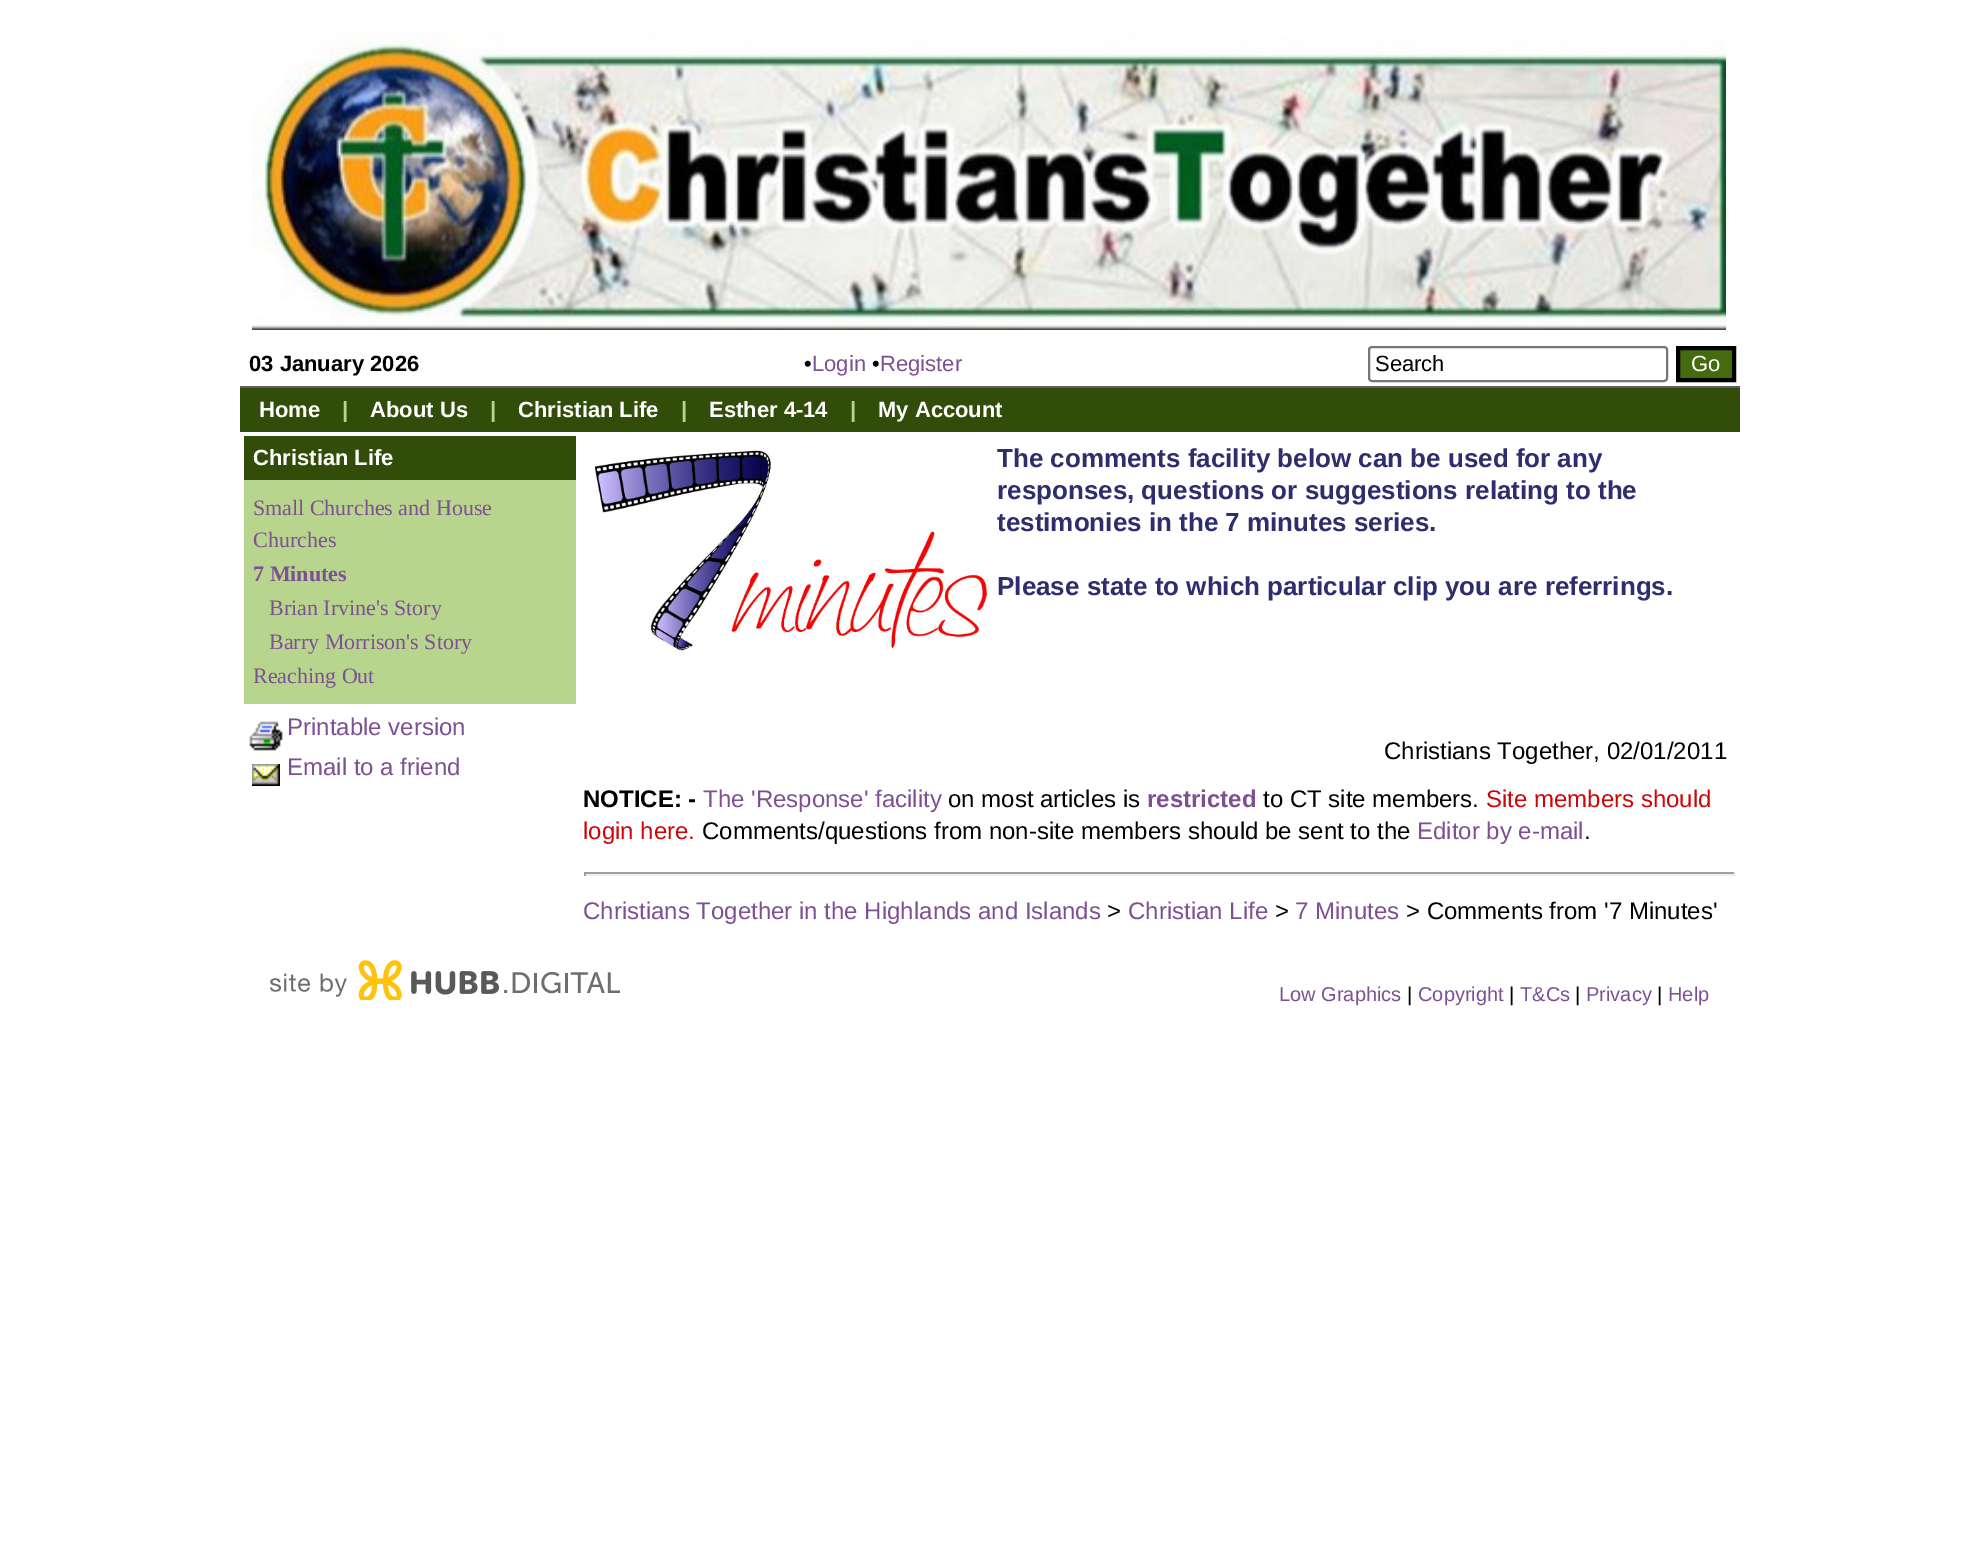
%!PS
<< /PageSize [1977 1544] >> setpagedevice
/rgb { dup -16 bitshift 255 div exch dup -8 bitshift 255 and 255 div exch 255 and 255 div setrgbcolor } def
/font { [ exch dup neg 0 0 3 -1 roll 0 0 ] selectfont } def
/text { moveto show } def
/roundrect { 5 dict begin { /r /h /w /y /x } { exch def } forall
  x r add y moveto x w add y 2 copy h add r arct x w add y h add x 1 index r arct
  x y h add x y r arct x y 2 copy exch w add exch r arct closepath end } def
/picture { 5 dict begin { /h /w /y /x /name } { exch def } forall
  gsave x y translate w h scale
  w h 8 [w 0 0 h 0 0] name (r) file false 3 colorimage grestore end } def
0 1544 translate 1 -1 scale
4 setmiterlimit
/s1 { /LiberationSans-Bold 22 font 16#000000 rgb } def
/s2 { /LiberationSans-Regular 22 font 16#000000 rgb } def
/s3 { /LiberationSans-Regular 22 font 16#7D5093 rgb } def
/s4 { /LiberationSans-Regular 22 font 16#FFFFFF rgb } def
/s5 { /LiberationSans-Bold 22 font 16#FFFFFF rgb } def
/s6 { /LiberationSans-Bold 22 font 16#B8D58E rgb } def
/s7 { /LiberationSerif-Regular 22 font 16#7D5093 rgb } def
/s8 { /LiberationSerif-Bold 22 font 16#7D5093 rgb } def
/s9 { /LiberationSans-Regular 24 font 16#7D5093 rgb } def
/s10 { /LiberationSans-Bold 26 font 16#2E2E6F rgb } def
/s11 { /LiberationSans-Regular 24 font 16#000000 rgb } def
/s12 { /LiberationSans-Bold 24 font 16#000000 rgb } def
/s13 { /LiberationSans-Bold 24 font 16#7D5093 rgb } def
/s14 { /LiberationSans-Regular 24 font 16#CC0606 rgb } def
/s15 { /LiberationSans-Regular 20 font 16#7D5093 rgb } def
/s16 { /LiberationSans-Regular 20 font 16#000000 rgb } def
16#FFFFFF rgb
0 0 1977 1544 rectfill
(pic1.raw) 252 32 1474 298 picture
16#625A66 rgb
240 386 1500 2 rectfill
s1
(03 January 2026) 249 371 text
s2
(•) 804 371 text
s3
(Login) 812 371 text
s2
(•) 872 371 text
s3
(Register) 880 371 text
16#767676 rgb
2 setlinewidth
1369 347 298 34 3 roundrect stroke
s2
(Search) 1375 371 text
16#466B0F rgb
1678 348 moveto 1734 348 lineto 1734 380 lineto 1678 380 lineto closepath gsave fill grestore
16#000000 rgb
4 setlinewidth
stroke
s4
(Go) 1691 371 text
16#324D0A rgb
240 388 1500 44 rectfill
s5
(Home) 259 417 text
s6
(|) 342 417 text
s5
(About Us) 370 417 text
s6
(|) 490 417 text
s5
(Christian Life) 518 417 text
s6
(|) 681 417 text
s5
(Esther 4-14) 709 417 text
s6
(|) 850 417 text
s5
(My Account) 878 417 text
16#324D0A rgb
244 436 332 44 rectfill
s5
(Christian Life) 253 465 text
16#B8D58E rgb
244 480 332 224 rectfill
s7
(Small Churches and House) 253 515 text
(Churches) 253 547 text
s8
(7 Minutes) 253 581 text
s7
(Brian Irvine's Story) 269 615 text
(Barry Morrison's Story) 269 649 text
(Reaching Out) 253 683 text
(pic2.raw) 249 721 34 30 picture
s9
(Printable version) 287 735 text
(pic3.raw) 252 764 28 22 picture
(Email to a friend) 287 775 text
(pic4.raw) 594 450 396 201 picture
s10
(The comments facility below can be used for any) 997 467 text
(responses, questions or suggestions relating to the) 997 499 text
(testimonies in the 7 minutes series.) 997 531 text
(Please state to which particular clip you are referrings.) 997 595 text
s11
(Christians Together, 02/01/2011) 1384 759 text
s12
(NOTICE: -) 583 807 text
s9
(The 'Response' facility) 703 807 text
s11
(on most articles is) 948 807 text
s13
(restricted) 1147 807 text
s11
(to CT site members.) 1263 807 text
s14
(Site members should) 1486 807 text
(login here.) 583 839 text
s11
(Comments/questions from non-site members should be sent to the) 702 839 text
s9
(Editor by e-mail) 1417 839 text
s11
(.) 1584 839 text
16#9F9F9F rgb
584 872 1152 2 rectfill
16#EEEEEE rgb
1734 872 2 4 rectfill
584 874 1152 2 rectfill
16#9F9F9F rgb
584 872 2 4 rectfill
s9
(Christians Together in the Highlands and Islands) 583 919 text
s11
(>) 1107 919 text
s9
(Christian Life) 1128 919 text
s11
(>) 1275 919 text
s9
(7 Minutes) 1295 919 text
s11
(> Comments from '7 Minutes') 1406 919 text
(pic5.raw) 270 960 350 40 picture
s15
(Low Graphics) 1279 1001 text
s16
(|) 1407 1001 text
s15
(Copyright) 1418 1001 text
s16
(|) 1509 1001 text
s15
(T&Cs) 1520 1001 text
s16
(|) 1575 1001 text
s15
(Privacy) 1586 1001 text
s16
(|) 1657 1001 text
s15
(Help) 1668 1001 text
showpage
